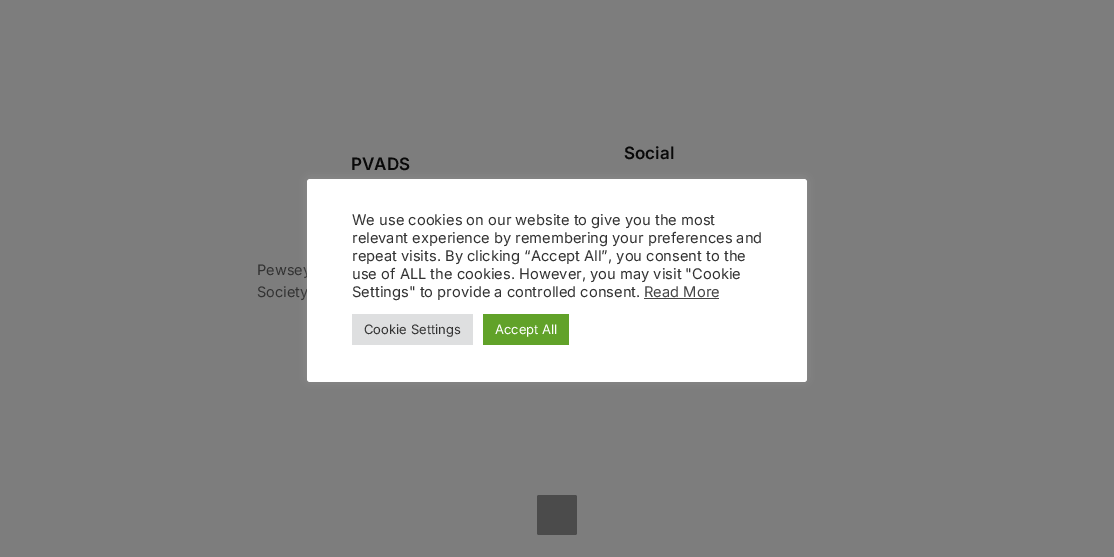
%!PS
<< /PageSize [1114 557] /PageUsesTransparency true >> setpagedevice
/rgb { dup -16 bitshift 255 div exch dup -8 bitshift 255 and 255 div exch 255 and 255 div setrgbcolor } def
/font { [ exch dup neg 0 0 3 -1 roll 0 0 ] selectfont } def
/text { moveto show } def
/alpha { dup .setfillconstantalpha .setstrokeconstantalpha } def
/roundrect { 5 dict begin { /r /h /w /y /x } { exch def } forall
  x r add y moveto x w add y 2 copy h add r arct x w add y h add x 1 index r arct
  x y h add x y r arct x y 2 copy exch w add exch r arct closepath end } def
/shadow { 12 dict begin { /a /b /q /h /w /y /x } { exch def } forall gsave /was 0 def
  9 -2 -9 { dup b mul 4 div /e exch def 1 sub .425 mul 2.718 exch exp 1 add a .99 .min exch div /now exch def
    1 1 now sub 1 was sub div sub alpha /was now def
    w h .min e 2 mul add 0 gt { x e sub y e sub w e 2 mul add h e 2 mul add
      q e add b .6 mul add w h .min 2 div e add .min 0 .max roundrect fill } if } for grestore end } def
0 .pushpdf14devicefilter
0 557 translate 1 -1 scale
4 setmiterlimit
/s1 { /Inter-SemiBold 17 font 16#090909 rgb } def
/s2 { /Inter-Regular 14.5 font 16#323232 rgb } def
/s3 { /Inter-Regular 14.7 font 16#323232 rgb } def
/s4 { /Inter-Regular 14.7 font 16#444444 rgb } def
/s5 { /Inter-Regular 13 font 16#323232 rgb } def
/s6 { /Inter-Regular 13 font 16#FFFFFF rgb } def
16#7D7D7D rgb
0 0 1114 557 rectfill
s1
(Social) 624 159 text
(PVADS) 351 170 text
s2
(Pewsey) 257 275 text
(Society) 257 297 text
16#ACABAB rgb
307 178 500 203 3 5 0.3 shadow
16#FFFFFF rgb
307 179 500 203 3 roundrect fill
s3
(We use cookies on our website to give you the most) 352 225 text
(relevant experience by remembering your preferences and) 352 243 text
(repeat visits. By clicking “Accept All”, you consent to the) 352 261 text
(use of ALL the cookies. However, you may visit "Cookie) 352 279 text
(Settings" to provide a controlled consent.) 352 297 text
s4
(Read More) 644 297 text
644 298 75 1 rectfill
16#DEDFE0 rgb
352 314 121 31 rectfill
s5
(Cookie Settings) 364 334 text
16#61A229 rgb
483 314 86 31 rectfill
s6
(Accept All) 495 334 text
16#4B4B4B rgb
537 495 40 40 2 roundrect fill
.poppdf14devicefilter showpage
